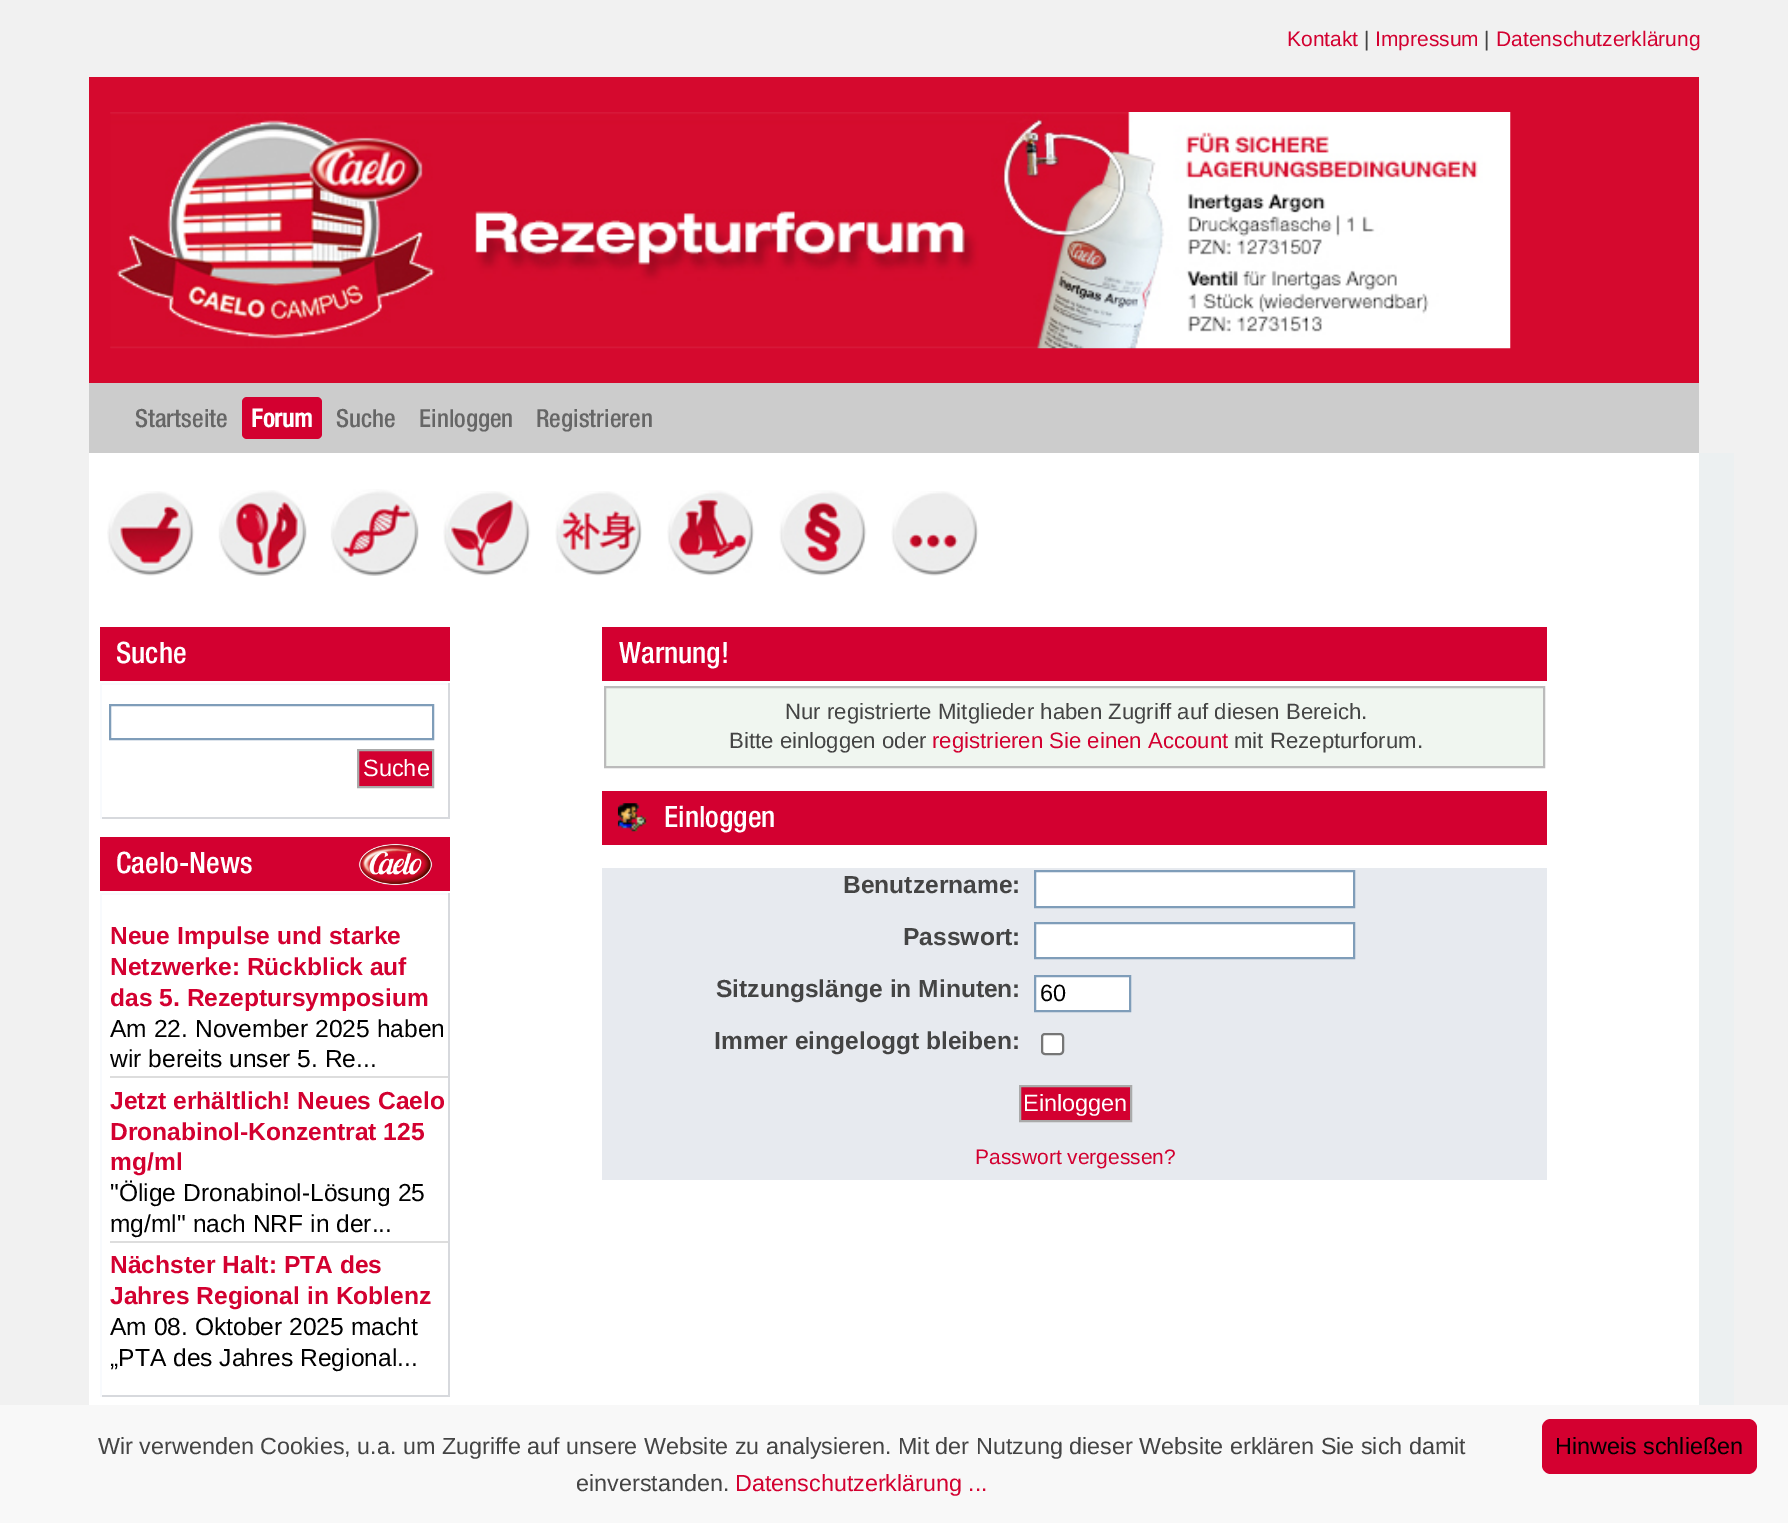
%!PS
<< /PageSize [1788 1523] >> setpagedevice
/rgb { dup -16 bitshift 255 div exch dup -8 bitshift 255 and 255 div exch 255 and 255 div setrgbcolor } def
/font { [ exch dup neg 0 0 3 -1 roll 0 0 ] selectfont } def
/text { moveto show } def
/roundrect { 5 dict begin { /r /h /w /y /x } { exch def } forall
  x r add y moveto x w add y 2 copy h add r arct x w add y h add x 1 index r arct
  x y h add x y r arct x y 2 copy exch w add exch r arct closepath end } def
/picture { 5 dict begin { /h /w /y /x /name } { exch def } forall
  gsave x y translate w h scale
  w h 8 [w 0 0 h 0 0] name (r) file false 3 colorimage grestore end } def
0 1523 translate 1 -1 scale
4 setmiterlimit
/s1 { /LiberationSans-Regular 21 font 16#D30030 rgb } def
/s2 { /LiberationSans-Regular 21 font 16#444444 rgb } def
/s3 { /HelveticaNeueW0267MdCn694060-Regular 25 font 16#666666 rgb } def
/s4 { /HelveticaNeueW0267MdCn694060-Bold 25 font 16#FFFFFF rgb } def
/s5 { /HelveticaNeueW0267MdCn694060-Regular 29.5 font 16#FFFFFF rgb } def
/s6 { /LiberationSans-Regular 23.5 font 16#FFFFFF rgb } def
/s7 { /LiberationSans-Bold 24.6 font 16#D30030 rgb } def
/s8 { /LiberationSans-Regular 24.6 font 16#000000 rgb } def
/s9 { /LiberationSans-Regular 22.2 font 16#444444 rgb } def
/s10 { /LiberationSans-Regular 22.2 font 16#D30030 rgb } def
/s11 { /LiberationSans-Bold 24.6 font 16#444444 rgb } def
/s12 { /LiberationSans-Regular 23.5 font 16#000000 rgb } def
/s13 { /LiberationSans-Regular 23.33 font 16#444444 rgb } def
/s14 { /LiberationSans-Regular 23.33 font 16#D30030 rgb } def
/s15 { /LiberationSans-Regular 23.33 font 16#000000 rgb } def
16#F1F1F1 rgb
0 0 1788 1523 rectfill
s1
(Kontakt) 1287 46 text
s2
(|) 1364 46 text
s1
(Impressum) 1375 46 text
s2
(|) 1484 46 text
s1
(Datenschutzerklärung) 1496 46 text
16#D5092E rgb
89 77 1610 306 rectfill
(pic1.raw) 110 112 1401 237 picture
16#CCCCCC rgb
89 383 1610 70 rectfill
s3
(Startseite) 135 427 text
16#D30030 rgb
250 397 72 42 5 roundrect fill
242 397 71 42 5 roundrect fill
s4
(Forum) 251 427 text
s3
(Suche) 336 427 text
(Einloggen) 419 427 text
(Registrieren) 536 427 text
16#ECF0F1 rgb
1699 453 35 952 rectfill
16#FFFFFF rgb
89 453 1610 952 rectfill
(pic2.raw) 107 491 88 85 picture
(pic3.raw) 218 490 89 86 picture
(pic4.raw) 330 489 89 87 picture
(pic5.raw) 443 491 88 85 picture
(pic6.raw) 555 491 87 85 picture
(pic7.raw) 667 490 88 86 picture
(pic8.raw) 779 490 88 86 picture
(pic9.raw) 891 491 88 85 picture
16#D30030 rgb
100 627 350 54 rectfill
s5
(Suche) 116 663 text
16#F8FAFD rgb
100 683 350 2 rectfill
16#D7D9DD rgb
448 683 2 136 rectfill
100 817 350 2 rectfill
16#F8FAFD rgb
100 683 2 136 rectfill
16#7F9DB9 rgb
2 setlinewidth
110 705 323 34 rectstroke
16#D30030 rgb
358 750 moveto 433 750 lineto 433 787 lineto 358 787 lineto closepath gsave fill grestore
16#AAAAAA rgb
stroke
s6
(Suche) 363 776 text
16#D30030 rgb
100 837 350 54 rectfill
(pic10.raw) 358 843 75 43 picture
s5
(Caelo-News) 116 873 text
16#F8FAFD rgb
100 893 350 2 rectfill
16#D7D9DD rgb
448 893 2 504 rectfill
100 1395 350 2 rectfill
16#F8FAFD rgb
100 893 2 504 rectfill
s7
(Neue Impulse und starke) 110 944 text
(Netzwerke: Rückblick auf) 110 975 text
(das 5. Rezeptursymposium) 110 1006 text
16#DDDDDD rgb
110 1076 338 2 rectfill
s8
(Am 22. November 2025 haben) 110 1037 text
(wir bereits unser 5. Re...) 110 1067 text
s7
(Jetzt erhältlich! Neues Caelo) 110 1109 text
(Dronabinol-Konzentrat 125) 110 1140 text
(mg/ml) 110 1170 text
16#DDDDDD rgb
110 1241 338 2 rectfill
s8
("Ölige Dronabinol-Lösung 25) 110 1201 text
(mg/ml" nach NRF in der...) 110 1232 text
s7
(Nächster Halt: PTA des) 110 1273 text
(Jahres Regional in Koblenz) 110 1304 text
s8
(Am 08. Oktober 2025 macht) 110 1335 text
(„PTA des Jahres Regional...) 110 1366 text
16#D30030 rgb
602 627 945 54 rectfill
s5
(Warnung!) 619 663 text
16#F0F6F0 rgb
605 687 moveto 1544 687 lineto 1544 767 lineto 605 767 lineto closepath gsave fill grestore
16#BBBBBB rgb
stroke
s9
(Nur registrierte Mitglieder haben Zugriff auf diesen Bereich.) 785 719 text
(Bitte einloggen oder) 729 748 text
s10
(registrieren Sie einen Account) 932 748 text
s9
(mit Rezepturforum.) 1234 748 text
16#D30030 rgb
602 791 945 54 rectfill
(pic11.raw) 617 803 30 29 picture
s5
(Einloggen) 664 827 text
16#E7EAEF rgb
602 868 945 312 rectfill
s11
(Benutzername:) 843 893 text
16#FFFFFF rgb
1035 871 moveto 1354 871 lineto 1354 907 lineto 1035 907 lineto closepath gsave fill grestore
16#7F9DB9 rgb
stroke
s11
(Passwort:) 903 945 text
16#FFFFFF rgb
1035 923 moveto 1354 923 lineto 1354 958 lineto 1035 958 lineto closepath gsave fill grestore
16#7F9DB9 rgb
stroke
s11
(Sitzungslänge in Minuten:) 716 997 text
16#FFFFFF rgb
1035 976 moveto 1130 976 lineto 1130 1011 lineto 1035 1011 lineto closepath gsave fill grestore
16#7F9DB9 rgb
stroke
s12
(60) 1040 1001 text
s11
(Immer eingeloggt bleiben:) 714 1049 text
16#FFFFFF rgb
1042 1034 21 20 3 roundrect gsave fill grestore
16#767676 rgb
stroke
16#D30030 rgb
1020 1086 moveto 1131 1086 lineto 1131 1121 lineto 1020 1121 lineto closepath gsave fill grestore
16#AAAAAA rgb
stroke
s6
(Einloggen) 1023 1111 text
s1
(Passwort vergessen?) 975 1164 text
16#F8F8F8 rgb
0 1405 1788 118 rectfill
s13
(Wir verwenden Cookies, u.a. um Zugriffe auf unsere Website zu analysieren. Mit der Nutzung dieser Website erklären Sie sich damit) 98 1454 text
(einverstanden.) 576 1491 text
s14
(Datenschutzerklärung ...) 735 1491 text
16#D40030 rgb
1542 1419 215 55 9 roundrect fill
s15
(Hinweis schließen) 1555 1454 text
showpage
